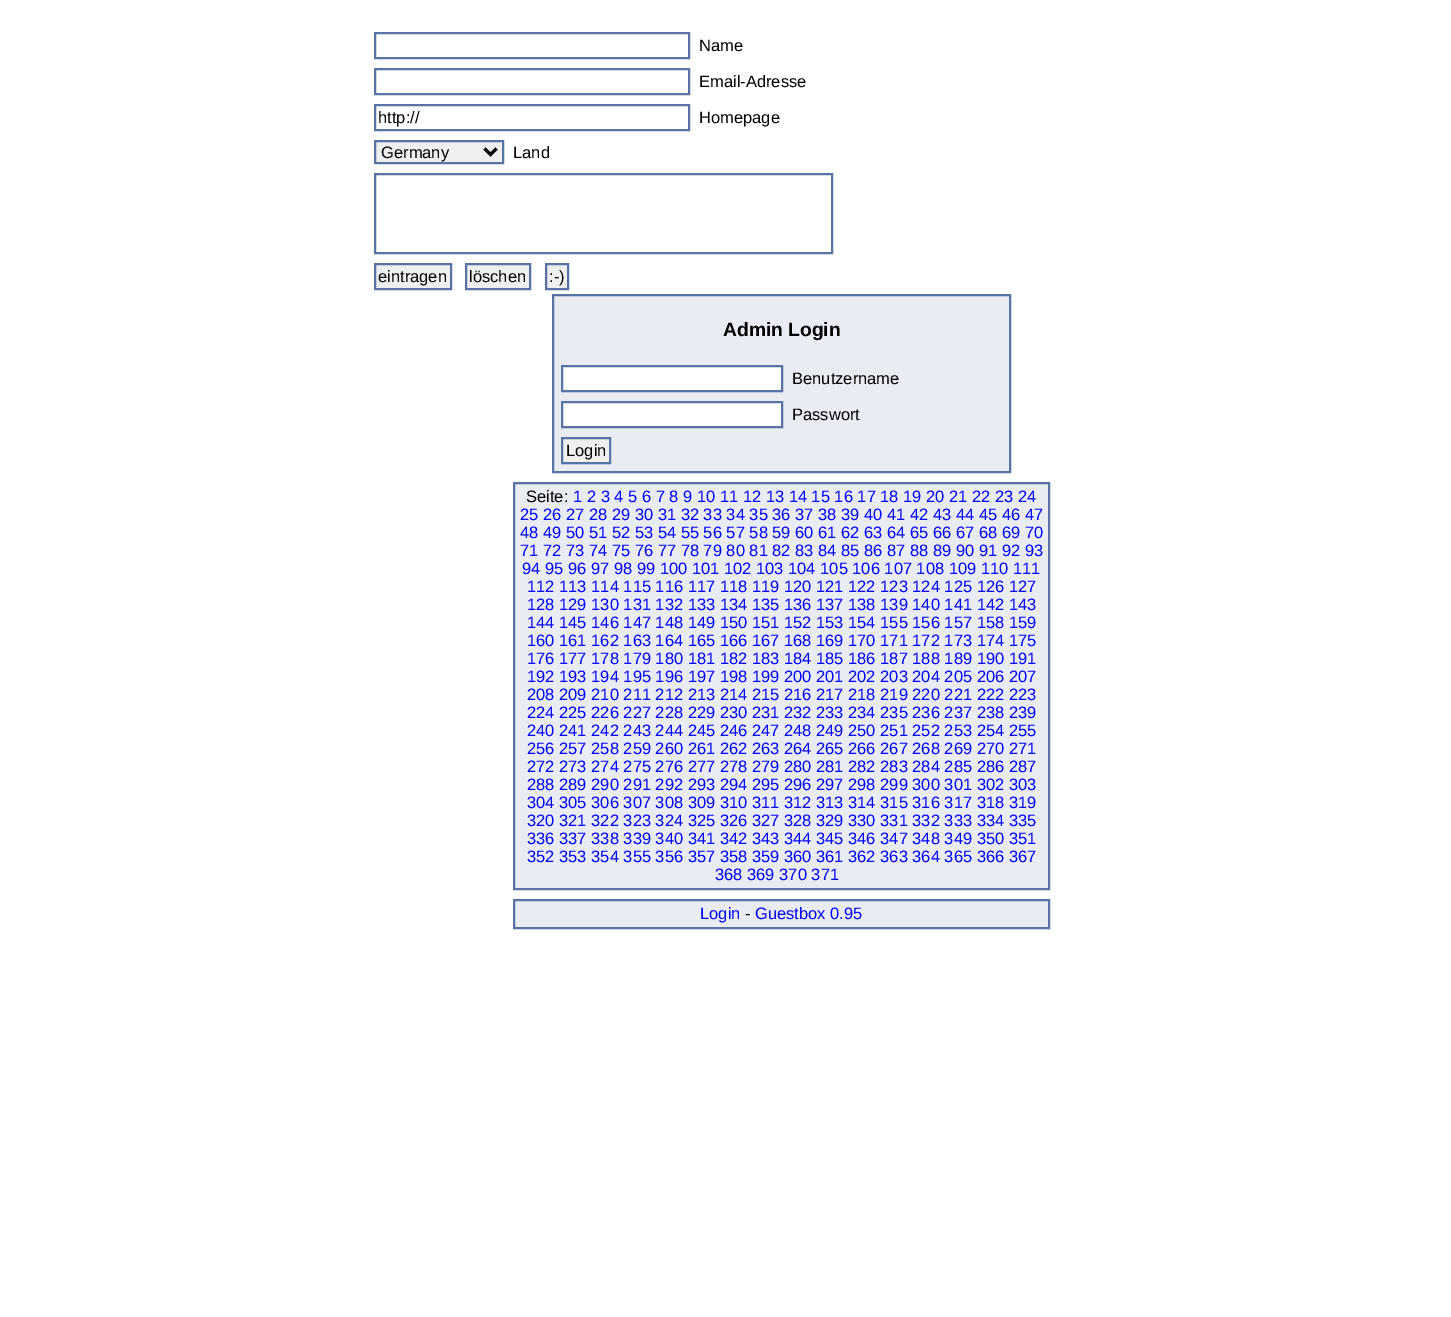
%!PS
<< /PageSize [1451 1317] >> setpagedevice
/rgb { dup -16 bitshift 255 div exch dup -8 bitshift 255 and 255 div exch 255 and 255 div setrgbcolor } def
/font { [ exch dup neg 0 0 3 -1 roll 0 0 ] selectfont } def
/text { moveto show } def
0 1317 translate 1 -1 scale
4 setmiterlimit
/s1 { /LiberationSans-Regular 16.5 font 16#000000 rgb } def
/s2 { /LiberationSans-Bold 19.25 font 16#000000 rgb } def
/s3 { /LiberationSans-Regular 16.5 font 16#0000FF rgb } def
16#FFFFFF rgb
0 0 1451 1317 rectfill
16#5973A5 rgb
2 setlinewidth
375 33 314 25 rectstroke
s1
(Name) 699 51 text
16#5973A5 rgb
375 69 314 25 rectstroke
s1
(Email-Adresse) 699 87 text
16#5973A5 rgb
375 105 314 25 rectstroke
s1
(http://) 378 123 text
(Homepage) 699 123 text
16#EFEFEF rgb
375 141 moveto 503 141 lineto 503 163 lineto 375 163 lineto closepath gsave fill grestore
16#5973A5 rgb
stroke
16#000000 rgb
3 setlinewidth
484.5 148.5 moveto 490.5 154.5 lineto 496.5 148.5 lineto stroke
(Germany) 381 158 text
(Land) 513 158 text
16#5973A5 rgb
2 setlinewidth
375 174 457 79 rectstroke
16#EFEFEF rgb
375 264 moveto 451 264 lineto 451 289 lineto 375 289 lineto closepath gsave fill grestore
16#5973A5 rgb
stroke
s1
(eintragen) 378 282 text
16#EFEFEF rgb
466 264 moveto 530 264 lineto 530 289 lineto 466 289 lineto closepath gsave fill grestore
16#5973A5 rgb
stroke
s1
(löschen) 469 282 text
16#EFEFEF rgb
546 264 moveto 568 264 lineto 568 289 lineto 546 289 lineto closepath gsave fill grestore
16#5973A5 rgb
stroke
s1
(:-\)) 549 282 text
16#E9ECF3 rgb
553 295 moveto 1010 295 lineto 1010 472 lineto 553 472 lineto closepath gsave fill grestore
16#5973A5 rgb
stroke
s2
(Admin Login) 723 336 text
16#FFFFFF rgb
562 366 moveto 782 366 lineto 782 391 lineto 562 391 lineto closepath gsave fill grestore
16#5973A5 rgb
stroke
s1
(Benutzername) 792 384 text
16#FFFFFF rgb
562 402 moveto 782 402 lineto 782 427 lineto 562 427 lineto closepath gsave fill grestore
16#5973A5 rgb
stroke
s1
(Passwort) 792 420 text
16#EFEFEF rgb
562 438 moveto 610 438 lineto 610 463 lineto 562 463 lineto closepath gsave fill grestore
16#5973A5 rgb
stroke
s1
(Login) 566 456 text
16#E9ECF3 rgb
514 483 moveto 1049 483 lineto 1049 889 lineto 514 889 lineto closepath gsave fill grestore
16#5973A5 rgb
stroke
s1
(Seite:) 526 502 text
s3
(1 2 3 4 5 6 7 8 9 10 11 12 13 14 15 16 17 18 19 20 21 22 23 24) 573 502 text
(25 26 27 28 29 30 31 32 33 34 35 36 37 38 39 40 41 42 43 44 45 46 47) 520 520 text
(48 49 50 51 52 53 54 55 56 57 58 59 60 61 62 63 64 65 66 67 68 69 70) 520 538 text
(71 72 73 74 75 76 77 78 79 80 81 82 83 84 85 86 87 88 89 90 91 92 93) 520 556 text
(94 95 96 97 98 99 100 101 102 103 104 105 106 107 108 109 110 111) 522 574 text
(112 113 114 115 116 117 118 119 120 121 122 123 124 125 126 127) 527 592 text
(128 129 130 131 132 133 134 135 136 137 138 139 140 141 142 143) 527 610 text
(144 145 146 147 148 149 150 151 152 153 154 155 156 157 158 159) 527 628 text
(160 161 162 163 164 165 166 167 168 169 170 171 172 173 174 175) 527 646 text
(176 177 178 179 180 181 182 183 184 185 186 187 188 189 190 191) 527 664 text
(192 193 194 195 196 197 198 199 200 201 202 203 204 205 206 207) 527 682 text
(208 209 210 211 212 213 214 215 216 217 218 219 220 221 222 223) 527 700 text
(224 225 226 227 228 229 230 231 232 233 234 235 236 237 238 239) 527 718 text
(240 241 242 243 244 245 246 247 248 249 250 251 252 253 254 255) 527 736 text
(256 257 258 259 260 261 262 263 264 265 266 267 268 269 270 271) 527 754 text
(272 273 274 275 276 277 278 279 280 281 282 283 284 285 286 287) 527 772 text
(288 289 290 291 292 293 294 295 296 297 298 299 300 301 302 303) 527 790 text
(304 305 306 307 308 309 310 311 312 313 314 315 316 317 318 319) 527 808 text
(320 321 322 323 324 325 326 327 328 329 330 331 332 333 334 335) 527 826 text
(336 337 338 339 340 341 342 343 344 345 346 347 348 349 350 351) 527 844 text
(352 353 354 355 356 357 358 359 360 361 362 363 364 365 366 367) 527 862 text
(368 369 370 371) 715 880 text
16#E9ECF3 rgb
514 900 moveto 1049 900 lineto 1049 928 lineto 514 928 lineto closepath gsave fill grestore
16#5973A5 rgb
stroke
s3
(Login) 700 919 text
s1
(-) 745 919 text
s3
(Guestbox 0.95) 755 919 text
showpage
